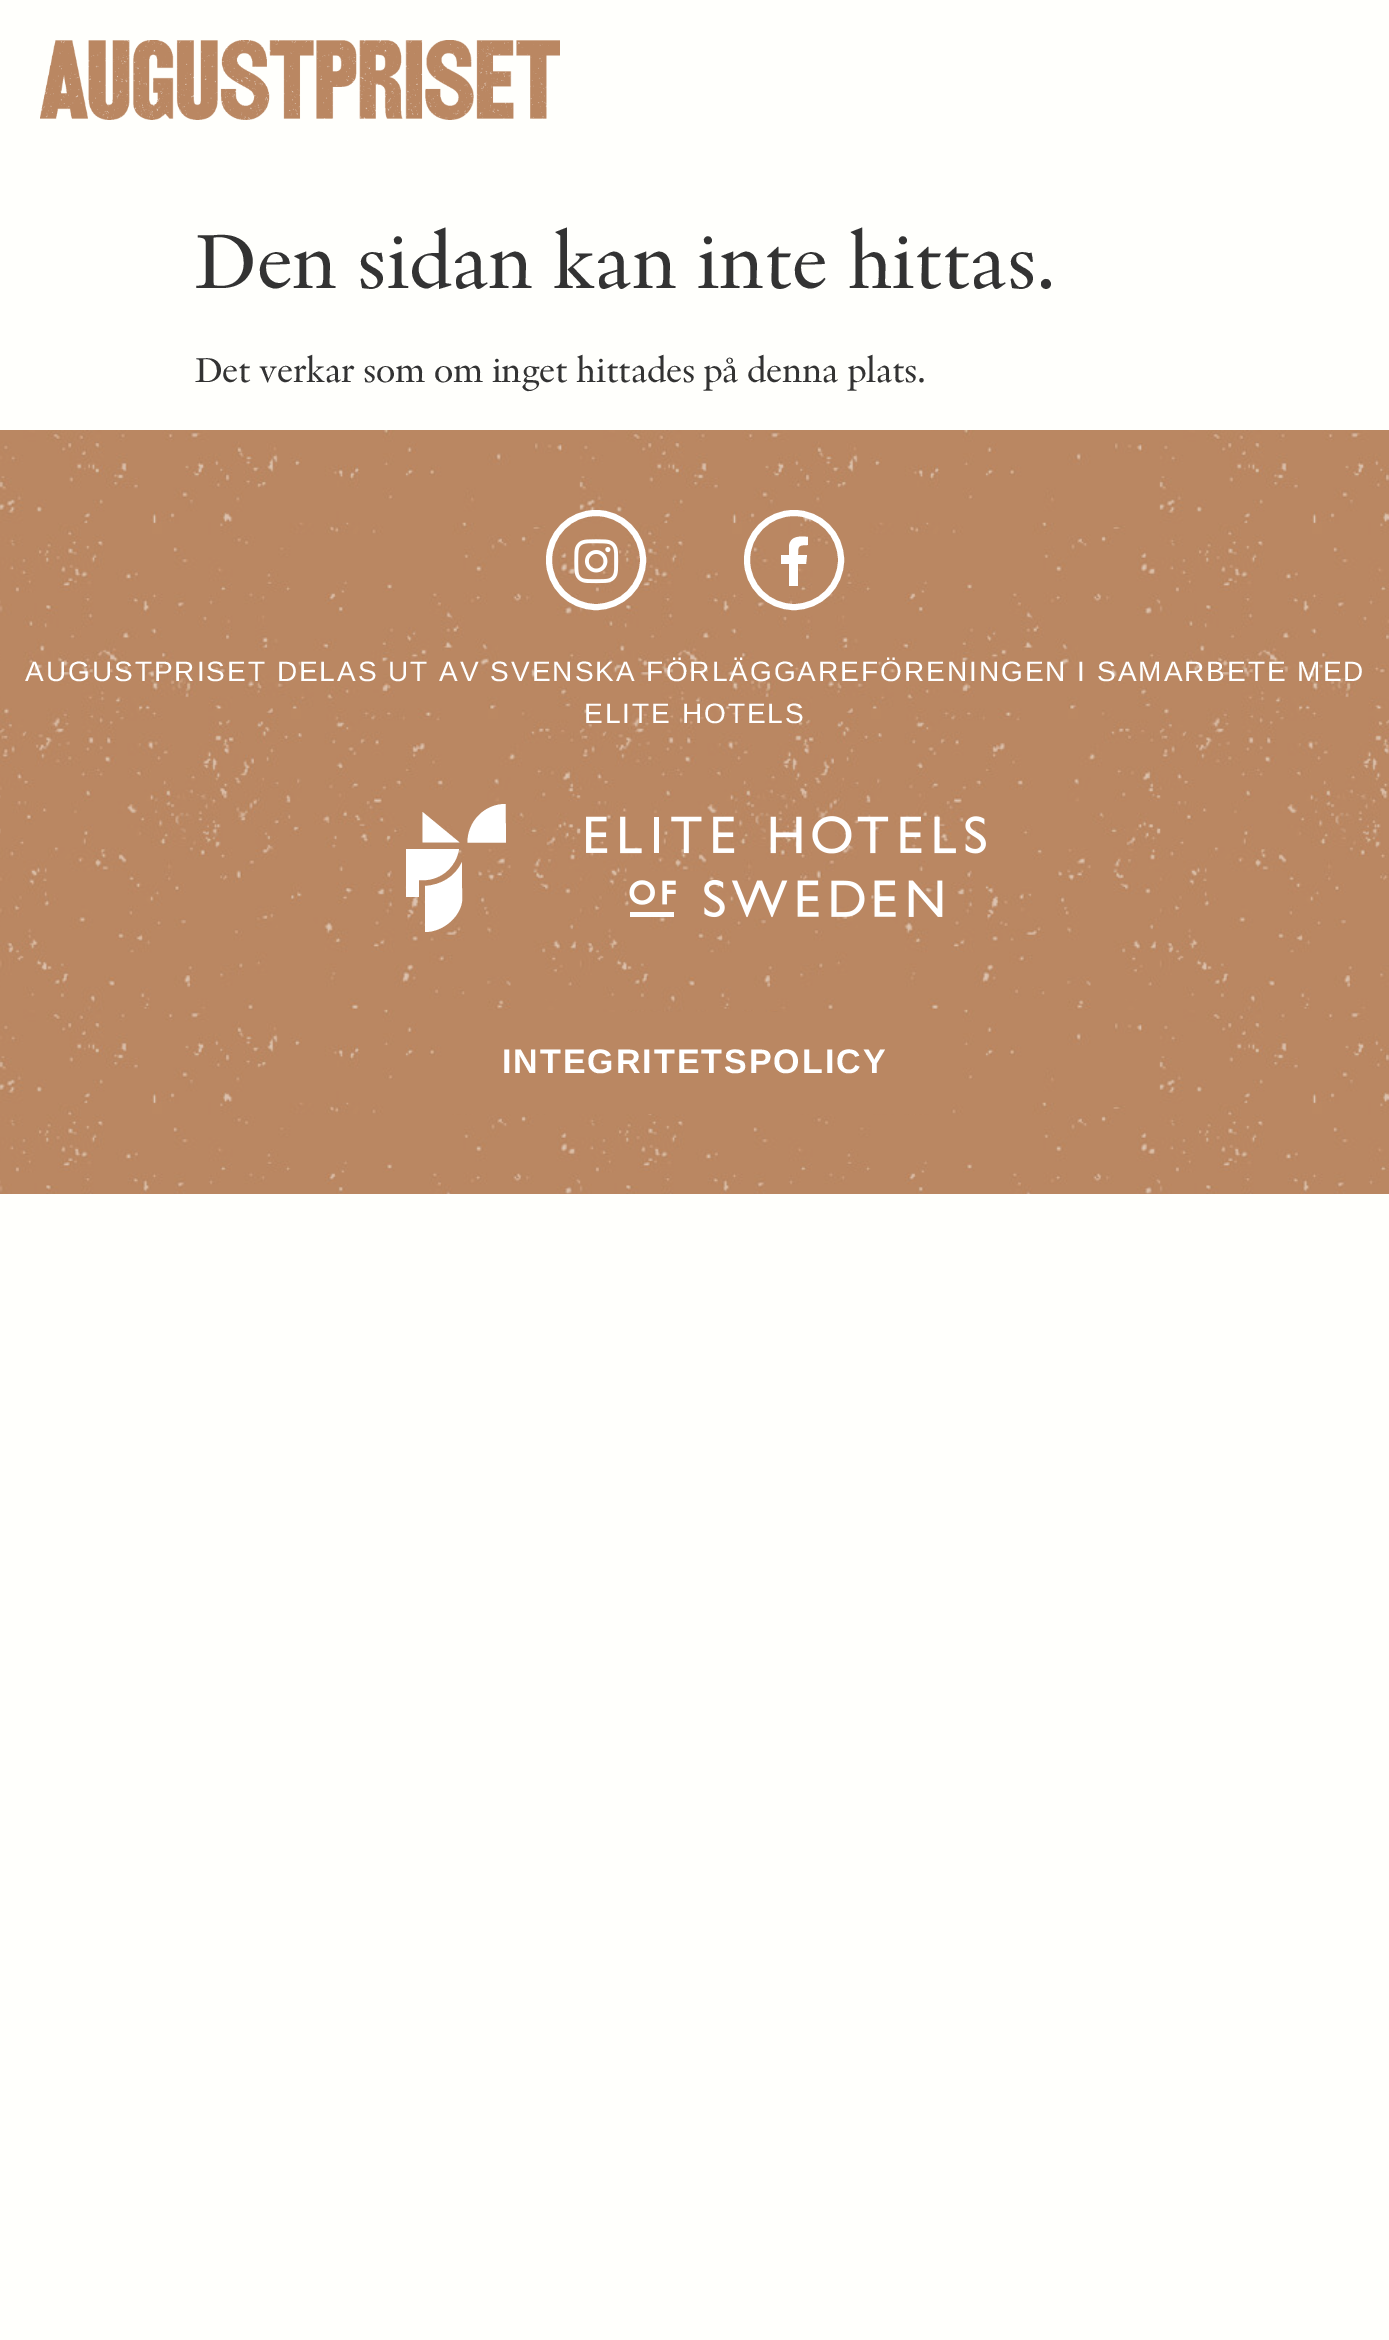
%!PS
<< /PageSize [1389 2340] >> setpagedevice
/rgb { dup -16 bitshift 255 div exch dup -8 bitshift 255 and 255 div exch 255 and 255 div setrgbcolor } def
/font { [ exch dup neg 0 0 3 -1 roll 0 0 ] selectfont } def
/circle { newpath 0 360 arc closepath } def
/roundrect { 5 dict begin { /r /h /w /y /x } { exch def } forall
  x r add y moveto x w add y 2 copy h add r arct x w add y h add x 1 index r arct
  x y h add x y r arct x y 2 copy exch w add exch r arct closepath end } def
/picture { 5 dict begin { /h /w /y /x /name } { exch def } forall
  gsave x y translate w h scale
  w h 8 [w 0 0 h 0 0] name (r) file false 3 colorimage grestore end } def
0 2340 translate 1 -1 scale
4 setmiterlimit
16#FFFFFC rgb
0 0 1389 2340 rectfill
(pic1.raw) 40 40 520 80 picture
/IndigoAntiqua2-Regular 80 font
16#333333 rgb
195 288 moveto -0.4 0 (Den sidan kan inte hittas.) ashow
/IndigoAntiqua2-Regular 36 font
195 382 moveto -0.4 0 (Det verkar som om inget hittades på denna plats.) ashow
(pic2.raw) 0 430 1389 764 picture
16#FFFFFF rgb
6 setlinewidth
596 560 47 circle stroke
(pic3.raw) 574 539 45 45 picture
794 560 47 circle stroke
806 564 moveto 798 564 lineto 798 586 lineto 789 586 lineto 789 564 lineto 781 564 lineto 781 555 lineto 789 555 lineto 789 546 lineto 790 536 800 536 808 537 curveto 808 545 lineto 798 545 798 546 798 555 curveto 807 555 lineto closepath fill
/LiberationSans-Regular 28 font
25 681 moveto 2 0 (AUGUSTPRISET DELAS UT AV SVENSKA FÖRLÄGGAREFÖRENINGEN I SAMARBETE MED) ashow
584 723 moveto 2 0 (ELITE HOTELS) ashow
462 862 moveto 455 877 441 885 425 886 curveto 425 932 lineto 440 932 456 921 461 906 curveto 463 900 462 894 462 887 curveto 462 862 lineto fill
419 880 moveto 439 882 456 868 459 849 curveto 406 849 lineto 406 897 lineto 419 897 lineto 419 880 lineto fill
422.5 812 moveto 422.5 842.5 lineto 459.5 842.5 lineto closepath fill
505.5 804 moveto 484.5 804 467.5 821.5 467.5 842.5 curveto 467.5 843 506 842.5 506 842.5 curveto 505.5 804 lineto fill
(pic4.raw) 586 816 400 102 picture
16#BA8762 rgb
444 1012 502 102 6 roundrect fill
/LiberationSans-Bold 34 font
16#FFFFFF rgb
502 1073 moveto 2 0 (INTEGRITETSPOLICY) ashow
showpage
